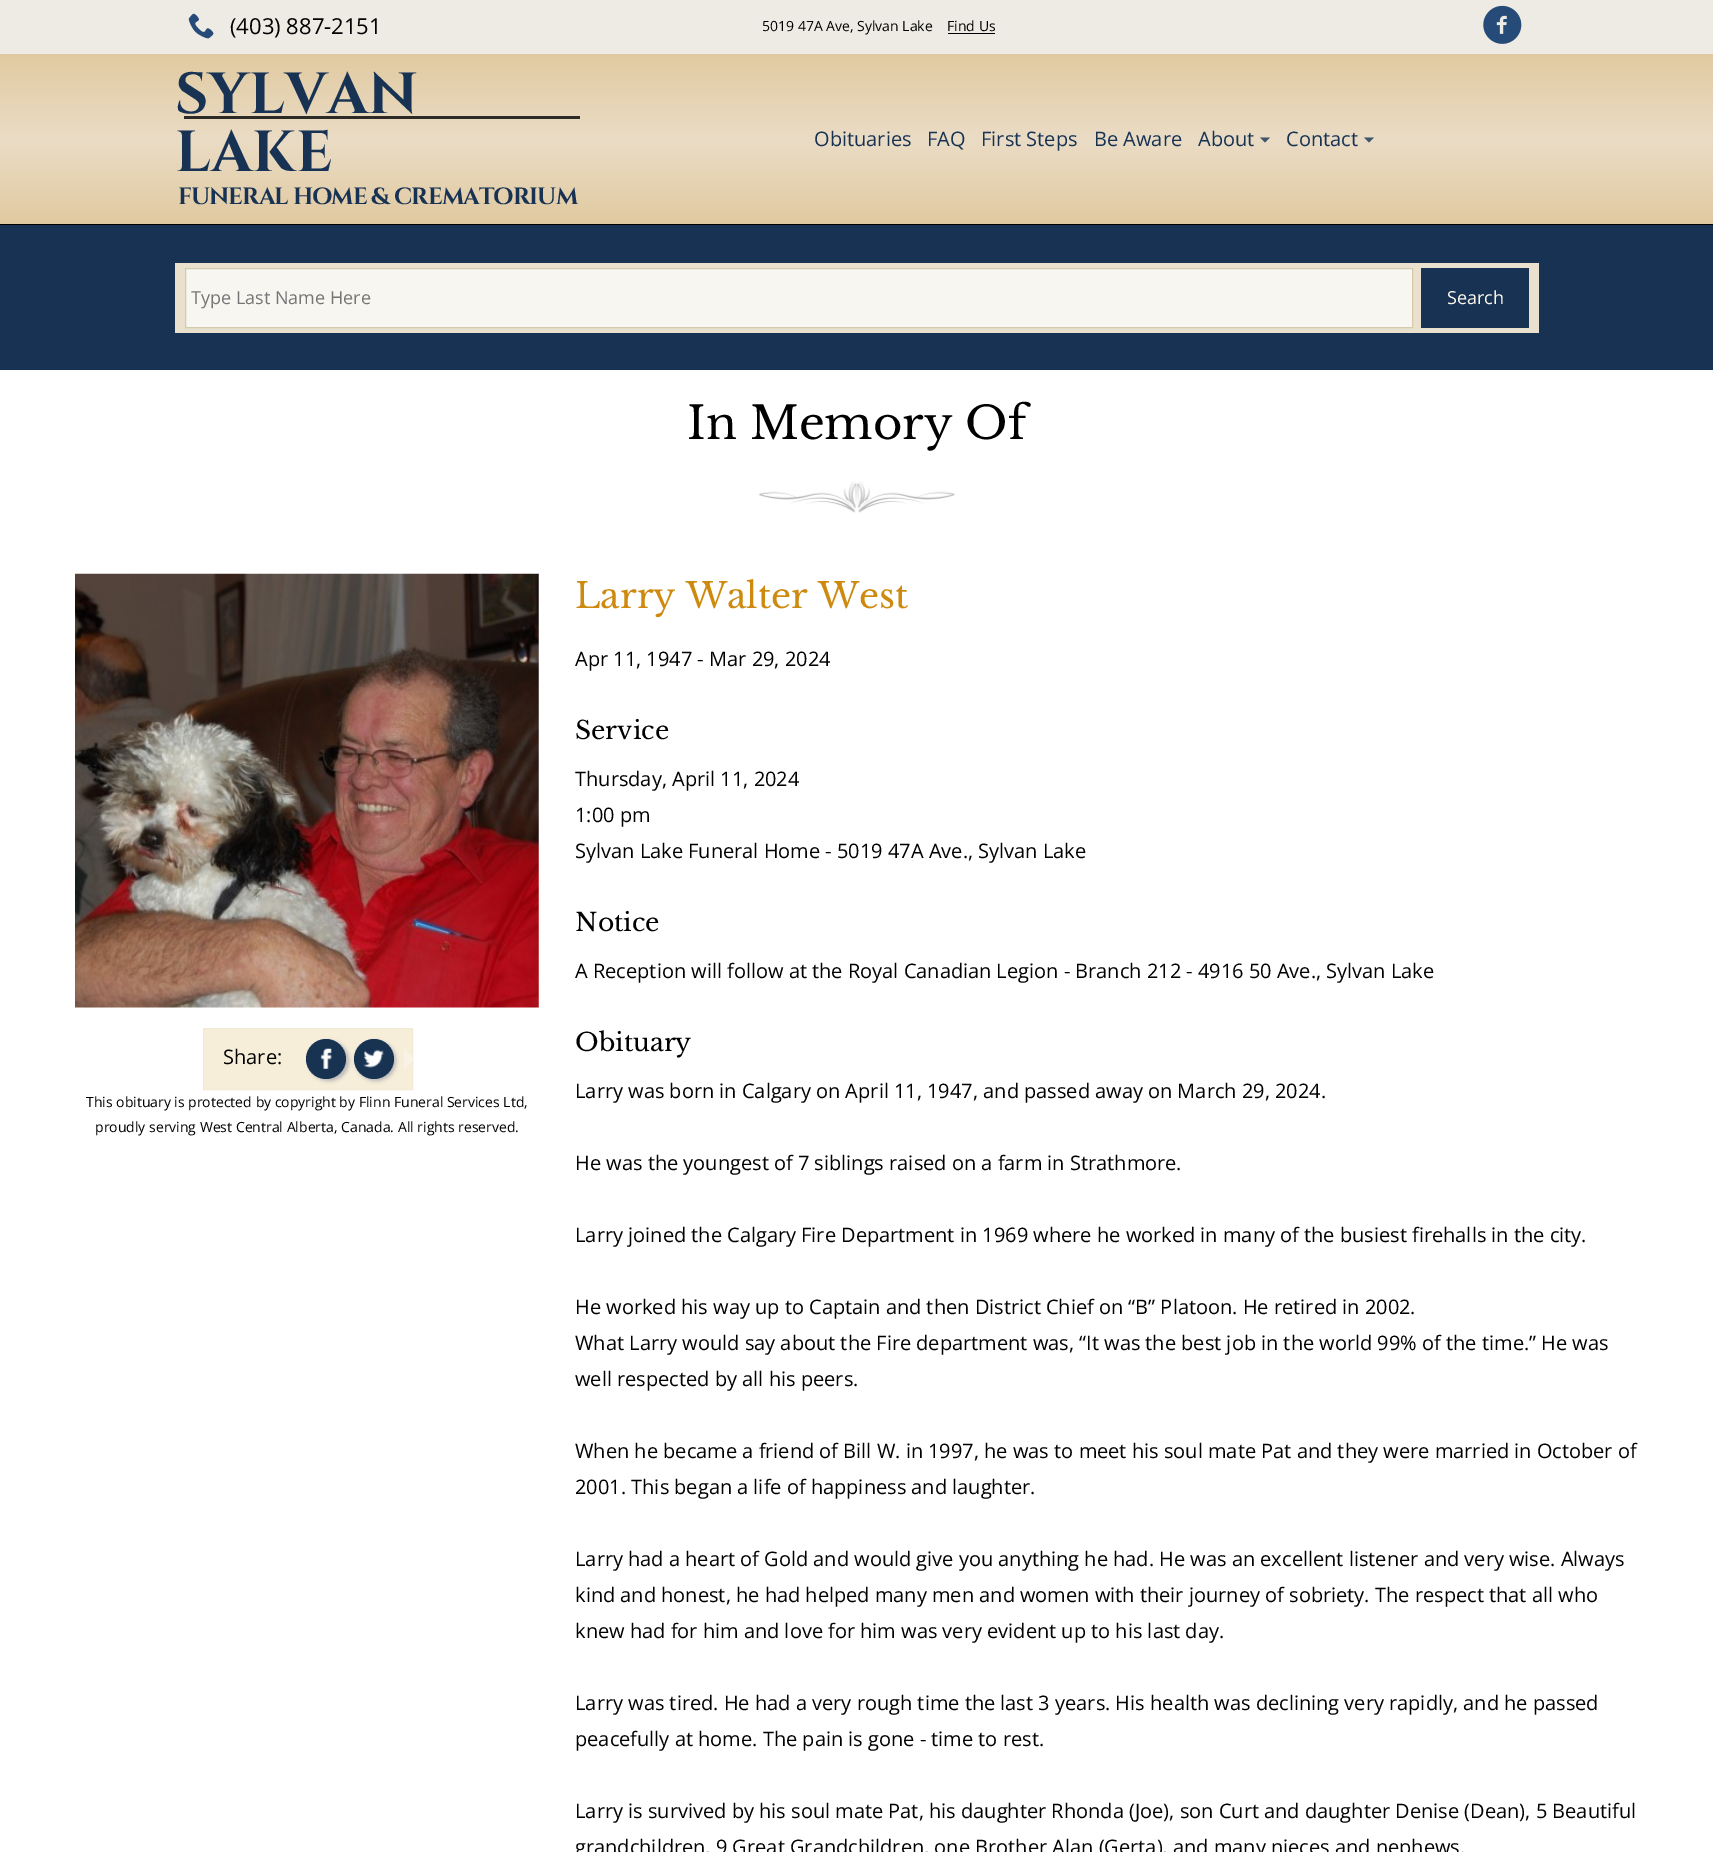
%!PS
<< /PageSize [1713 1852] /PageUsesTransparency true >> setpagedevice
/rgb { dup -16 bitshift 255 div exch dup -8 bitshift 255 and 255 div exch 255 and 255 div setrgbcolor } def
/font { [ exch dup neg 0 0 3 -1 roll 0 0 ] selectfont } def
/text { moveto show } def
/alpha { dup .setfillconstantalpha .setstrokeconstantalpha } def
/circle { newpath 0 360 arc closepath } def
/roundrect { 5 dict begin { /r /h /w /y /x } { exch def } forall
  x r add y moveto x w add y 2 copy h add r arct x w add y h add x 1 index r arct
  x y h add x y r arct x y 2 copy exch w add exch r arct closepath end } def
/shadow { 12 dict begin { /a /b /q /h /w /y /x } { exch def } forall gsave /was 0 def
  9 -2 -9 { dup b mul 4 div /e exch def 1 sub .425 mul 2.718 exch exp 1 add a .99 .min exch div /now exch def
    1 1 now sub 1 was sub div sub alpha /was now def
    w h .min e 2 mul add 0 gt { x e sub y e sub w e 2 mul add h e 2 mul add
      q e add b .6 mul add w h .min 2 div e add .min 0 .max roundrect fill } if } for grestore end } def
/picture { 5 dict begin { /h /w /y /x /name } { exch def } forall
  gsave x y translate w h scale
  w h 8 [w 0 0 h 0 0] name (r) file false 3 colorimage grestore end } def
0 .pushpdf14devicefilter
0 1852 translate 1 -1 scale
4 setmiterlimit
/s1 { /OpenSans-Regular 22 font 16#000000 rgb } def
/s2 { /OpenSans-Regular 14 font 16#000000 rgb } def
/s3 { /Cinzel-Bold 57.75 font 16#183253 rgb } def
/s4 { /OpenSans-Regular 20 font 16#183253 rgb } def
/s5 { /OpenSans-Regular 18 font 16#757575 rgb } def
/s6 { /OpenSans-Regular 18 font 16#FFFAF0 rgb } def
/s7 { /LibreBaskerville-Regular 45 font 16#000000 rgb } def
/s8 { /OpenSans-Regular 20 font 16#000000 rgb } def
/s9 { /LibreBaskerville-Regular 35 font 16#CE8A0F rgb } def
/s10 { /LibreBaskerville-Regular 25 font 16#000000 rgb } def
16#FFFFFF rgb
0 0 1713 1852 rectfill
16#EEEBE4 rgb
0 0 1713 54 rectfill
(pic1.raw) 188 13 26 26 picture
s1
(\(403\) 887-2151) 230 34 text
s2
(5019 47A Ave, Sylvan Lake) 762 31 text
(Find Us) 947 31 text
948 33 47 1 rectfill
(pic2.raw) 1483 5 39 39 picture
gsave 0 54 moveto 1713 54 lineto 1713 224 lineto 0 224 lineto closepath clip newpath
<< /ShadingType 2 /ColorSpace /DeviceRGB /Coords [857 54 857 224] /Extend [true true] /Function << /FunctionType 3 /Domain [0 1] /Functions [<< /FunctionType 2 /Domain [0 1] /C0 [0.882 0.792 0.631] /C1 [0.918 0.863 0.773] /N 1 >> << /FunctionType 2 /Domain [0 1] /C0 [0.918 0.863 0.773] /C1 [0.882 0.792 0.631] /N 1 >>] /Bounds [0.5] /Encode [0 1 0 1] >> >> shfill grestore
s3
(SYLVAN) 175 113 text
16#2E2B26 rgb
184 116 396 3 rectfill
s3
(LAKE) 175 171 text
/Cinzel-Bold 23.4 font
178 204 moveto -1 0 (FUNERAL HOME & CREMATORIUM) ashow
s4
(Obituaries) 814 146 text
(FAQ) 927 146 text
(First Steps) 981 146 text
(Be Aware) 1094 146 text
(About) 1198 146 text
16#42546A rgb
1260 137.5 moveto 1270 137.5 lineto 1265 142.5 lineto closepath fill
s4
(Contact) 1286 146 text
16#42546A rgb
1364 137.5 moveto 1374 137.5 lineto 1369 142.5 lineto closepath fill
16#183253 rgb
0 225 1713 145 rectfill
16#000000 rgb
0 224 1713 1 rectfill
16#E9E1CE rgb
175 263 1364 70 rectfill
16#F8F6F1 rgb
185.5 268.5 moveto 1412.5 268.5 lineto 1412.5 327.5 lineto 185.5 327.5 lineto closepath gsave fill grestore
16#D6CAAD rgb
stroke
s5
(Type Last Name Here) 191 304 text
16#183253 rgb
1421 268 108 60 rectfill
s6
(Search) 1447 304 text
s7
(In Memory Of) 687 439 text
(pic3.raw) 758 481 197 32 picture
(pic4.raw) 75 573 464 435 picture
16#F7EEDA rgb
203.5 1028.5 moveto 412.5 1028.5 lineto 412.5 1089.5 lineto 203.5 1089.5 lineto closepath gsave fill grestore
16#F3EAD6 rgb
stroke
s8
(Share:) 223 1064 text
16#B8B8B8 rgb
309 1041 40 40 20 2 1 shadow
16#183252 rgb
326 1059 20 circle fill
(pic5.raw) 320 1048 12 21 picture
16#B8B8B8 rgb
356 1041 40 40 20 2 1 shadow
16#183252 rgb
374 1059 20 circle fill
(pic6.raw) 363 1049 21 19 picture
0.3 alpha
16#FFFFFF rgb
404 1069 moveto 404 1049 lineto 415 1059 lineto closepath fill
1 alpha
s2
(This obituary is protected by copyright by Flinn Funeral Services Ltd,) 86 1107 text
(proudly serving West Central Alberta, Canada. All rights reserved.) 95 1132 text
s9
(Larry Walter West) 575 608 text
s8
(Apr 11, 1947 - Mar 29, 2024) 575 666 text
s10
(Service) 575 739 text
s8
(Thursday, April 11, 2024) 575 786 text
(1:00 pm) 575 822 text
(Sylvan Lake Funeral Home - 5019 47A Ave., Sylvan Lake) 575 858 text
s10
(Notice) 575 931 text
s8
(A Reception will follow at the Royal Canadian Legion - Branch 212 - 4916 50 Ave., Sylvan Lake) 575 978 text
s10
(Obituary) 575 1051 text
s8
(Larry was born in Calgary on April 11, 1947, and passed away on March 29, 2024.) 575 1098 text
(He was the youngest of 7 siblings raised on a farm in Strathmore.) 575 1170 text
(Larry joined the Calgary Fire Department in 1969 where he worked in many of the busiest firehalls in the city.) 575 1242 text
(He worked his way up to Captain and then District Chief on “B” Platoon. He retired in 2002.) 575 1314 text
(What Larry would say about the Fire department was, “It was the best job in the world 99% of the time.” He was) 575 1350 text
(well respected by all his peers.) 575 1386 text
(When he became a friend of Bill W. in 1997, he was to meet his soul mate Pat and they were married in October of) 575 1458 text
(2001. This began a life of happiness and laughter.) 575 1494 text
(Larry had a heart of Gold and would give you anything he had. He was an excellent listener and very wise. Always) 575 1566 text
(kind and honest, he had helped many men and women with their journey of sobriety. The respect that all who) 575 1602 text
(knew had for him and love for him was very evident up to his last day.) 575 1638 text
(Larry was tired. He had a very rough time the last 3 years. His health was declining very rapidly, and he passed) 575 1710 text
(peacefully at home. The pain is gone - time to rest.) 575 1746 text
(Larry is survived by his soul mate Pat, his daughter Rhonda \(Joe\), son Curt and daughter Denise \(Dean\), 5 Beautiful) 575 1818 text
(grandchildren, 9 Great Grandchildren, one Brother Alan \(Gerta\), and many nieces and nephews.) 575 1854 text
.poppdf14devicefilter showpage
